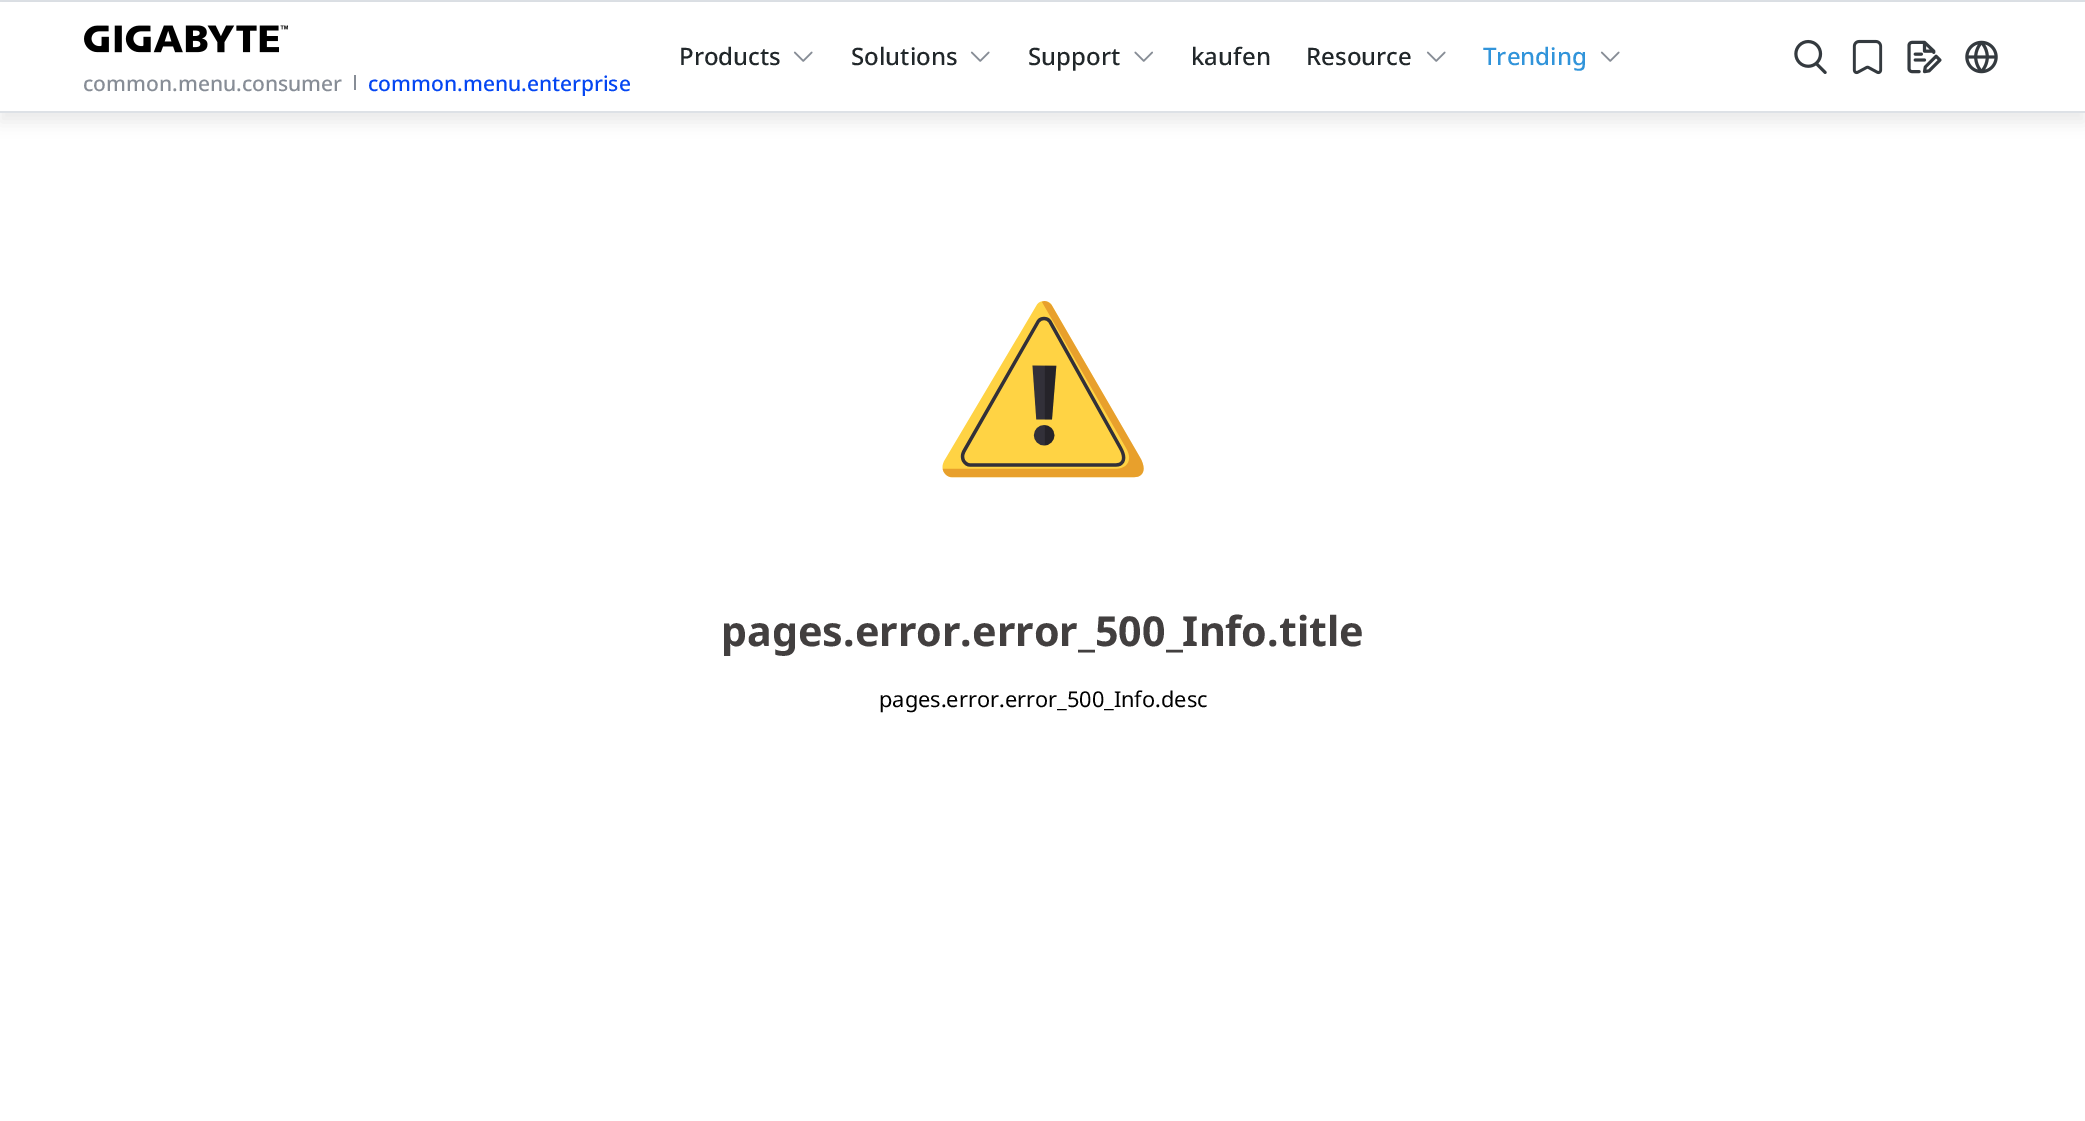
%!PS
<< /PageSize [2085 1121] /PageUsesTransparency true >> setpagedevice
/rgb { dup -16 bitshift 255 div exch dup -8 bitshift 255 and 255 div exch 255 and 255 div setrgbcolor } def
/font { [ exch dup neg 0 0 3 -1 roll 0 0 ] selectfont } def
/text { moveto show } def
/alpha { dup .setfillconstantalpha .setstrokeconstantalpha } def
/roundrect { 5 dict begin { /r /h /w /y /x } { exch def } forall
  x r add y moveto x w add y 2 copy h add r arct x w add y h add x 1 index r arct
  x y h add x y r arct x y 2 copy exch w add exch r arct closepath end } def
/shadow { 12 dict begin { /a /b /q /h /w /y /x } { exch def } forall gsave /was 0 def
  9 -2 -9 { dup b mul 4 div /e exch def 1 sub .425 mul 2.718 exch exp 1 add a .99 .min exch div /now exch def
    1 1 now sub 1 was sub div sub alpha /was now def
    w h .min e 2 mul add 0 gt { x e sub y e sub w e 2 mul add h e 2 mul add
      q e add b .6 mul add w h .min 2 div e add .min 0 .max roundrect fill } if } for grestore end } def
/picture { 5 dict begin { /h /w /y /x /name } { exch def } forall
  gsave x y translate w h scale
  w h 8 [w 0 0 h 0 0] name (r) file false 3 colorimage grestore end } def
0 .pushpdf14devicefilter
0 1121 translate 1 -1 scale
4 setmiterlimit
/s1 { /NotoSans-Medium 24 font 16#21272A rgb } def
/s2 { /NotoSans-Medium 24 font 16#3194DA rgb } def
/s3 { /NotoSans-Medium 21 font 16#878D96 rgb } def
/s4 { /NotoSans-Medium 21 font 16#0446F2 rgb } def
/s5 { /NotoSans-Bold 41.25 font 16#423F3F rgb } def
/s6 { /NotoSans-Regular 21.75 font 16#000000 rgb } def
16#FFFFFF rgb
0 0 2085 1121 rectfill
16#DDE1E6 rgb
0 0 2085 2 rectfill
16#000000 rgb
0 11 2085 111 0 7.5 0.08 shadow
16#FFFFFF rgb
0 2 2085 109 rectfill
16#DDE1E6 rgb
0 111 2085 2 rectfill
s1
(Products) 679 65 text
(pic1.raw) 793 51 20 11 picture
(Solutions) 851 65 text
(pic1.raw) 970 51 20 11 picture
(Support) 1028 65 text
(pic2.raw) 1134 51 19 11 picture
(kaufen) 1191 65 text
(Resource) 1306 65 text
(pic1.raw) 1426 51 20 11 picture
s2
(Trending) 1483 65 text
(pic1.raw) 1600 51 20 11 picture
(pic3.raw) 1794 39 33 35 picture
(pic4.raw) 1852 39 31 36 picture
(pic5.raw) 1907 40 35 34 picture
(pic6.raw) 1965 40 33 34 picture
(pic7.raw) 84 25 204 28 picture
s3
(common.menu.consumer) 83 91 text
354 75 2 15 rectfill
s4
(common.menu.enterprise) 368 91 text
(pic8.raw) 942 301 202 177 picture
s5
(pages.error.error_500_Info.title) 721 646 text
s6
(pages.error.error_500_Info.desc) 879 707 text
.poppdf14devicefilter showpage
